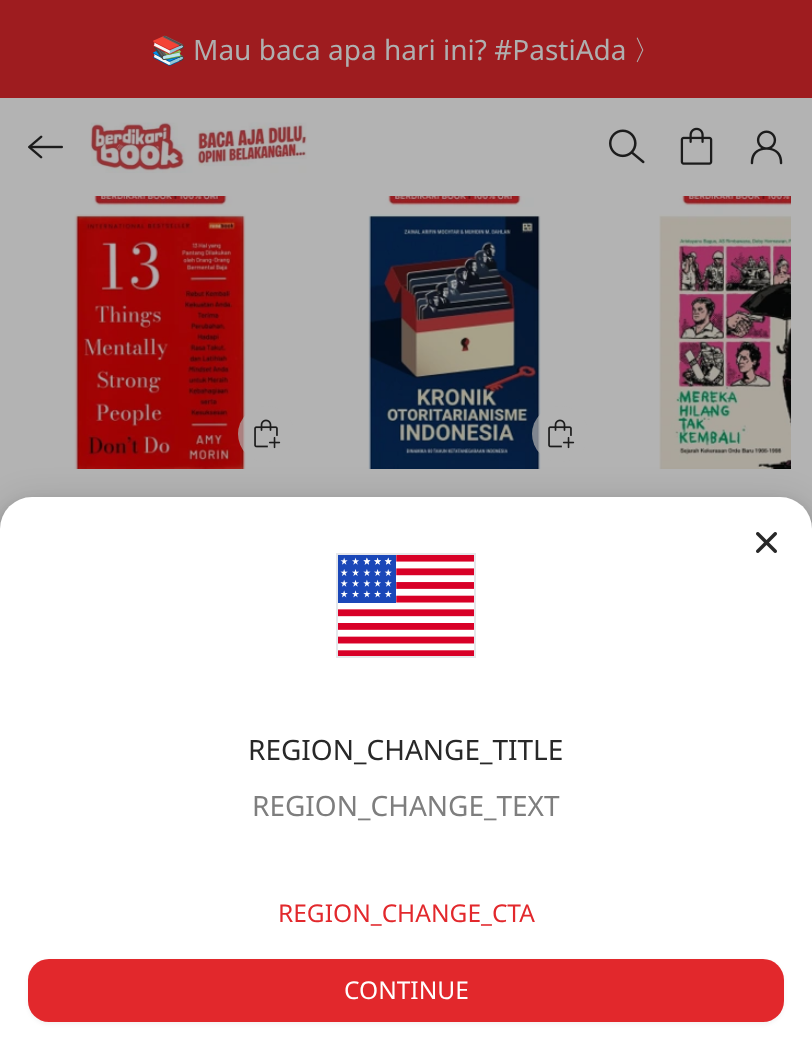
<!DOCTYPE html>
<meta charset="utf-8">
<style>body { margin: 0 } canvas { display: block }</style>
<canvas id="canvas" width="812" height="1050"></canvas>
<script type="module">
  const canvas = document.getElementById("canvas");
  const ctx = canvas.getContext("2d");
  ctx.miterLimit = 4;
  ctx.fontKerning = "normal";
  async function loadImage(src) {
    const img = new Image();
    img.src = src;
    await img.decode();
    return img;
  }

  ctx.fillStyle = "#b3b3b3";
  ctx.fillRect(0, 0, 812, 1050);
  ctx.fillStyle = "#9e1c1f";
  ctx.fillRect(0, 0, 812, 98);
  ctx.font = "28px Noto Color Emoji";
  ctx.fillStyle = "#afafaf";
  ctx.fillText("📚", 151, 60);
  ctx.font = "28px Noto Sans";
  ctx.fillText("Mau baca apa hari ini? #PastiAda", 193, 60);
  ctx.font = "500 28px WenQuanYi Zen Hei";
  ctx.fillText("〉", 633, 60);
  ctx.drawImage(await loadImage("img1.png"), 28, 135, 35, 24);
  ctx.drawImage(await loadImage("img2.png"), 90, 122, 217, 51);
  ctx.drawImage(await loadImage("img3.png"), 609, 129, 36, 35);
  ctx.drawImage(await loadImage("img4.png"), 680, 127, 33, 38);
  ctx.drawImage(await loadImage("img5.png"), 750, 130, 33, 35);
  ctx.drawImage(await loadImage("img6.png"), 74, 196, 172, 273);
  ctx.fillStyle = "rgba(179, 179, 179, 0.7)";
  ctx.beginPath();
  ctx.arc(266, 434, 28, 0, Math.PI * 2);
  ctx.fill();
  ctx.drawImage(await loadImage("img7.png"), 254, 419, 27, 30);
  ctx.drawImage(await loadImage("img8.png"), 368, 196, 173, 273);
  ctx.beginPath();
  ctx.arc(560, 434, 28, 0, Math.PI * 2);
  ctx.fill();
  ctx.drawImage(await loadImage("img7.png"), 548, 419, 27, 30);
  ctx.drawImage(await loadImage("img9.png"), 659, 196, 132, 273);
  ctx.fillStyle = "rgba(0, 0, 0, 0.12)";
  ctx.filter = "blur(16px)";
  ctx.beginPath();
  ctx.roundRect(0, 499, 812, 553, 32);
  ctx.fill();
  ctx.filter = "none";
  ctx.fillStyle = "rgba(0, 0, 0, 0.14)";
  ctx.filter = "blur(9px)";
  ctx.beginPath();
  ctx.roundRect(0, 508, 812, 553, 32);
  ctx.fill();
  ctx.filter = "none";
  ctx.fillStyle = "rgba(0, 0, 0, 0.2)";
  ctx.filter = "blur(4.5px)";
  ctx.beginPath();
  ctx.roundRect(2, 504, 808, 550, 30);
  ctx.fill();
  ctx.filter = "none";
  ctx.fillStyle = "#ffffff";
  ctx.beginPath();
  ctx.roundRect(0, 497, 812, 553, [32, 32, 0, 0]);
  ctx.fill();
  ctx.drawImage(await loadImage("img10.png"), 756, 532, 21, 21);
  ctx.strokeStyle = "#e5e7eb";
  ctx.lineWidth = 2;
  ctx.strokeRect(337, 554, 138, 103);
  ctx.drawImage(await loadImage("img11.png"), 338, 555, 136, 101);
  ctx.font = "28px Noto Sans";
  ctx.fillStyle = "#282828";
  ctx.fillText("REGION_CHANGE_TITLE", 248, 760);
  ctx.fillStyle = "#7e7e7e";
  ctx.fillText("REGION_CHANGE_TEXT", 252, 816);
  ctx.font = "24.5px Noto Sans";
  ctx.fillStyle = "#e2282c";
  ctx.fillText("REGION_CHANGE_CTA", 278, 922);
  ctx.fillStyle = "rgba(0, 0, 0, 0.05)";
  ctx.filter = "blur(2px)";
  ctx.beginPath();
  ctx.roundRect(28, 961, 756, 63, 21);
  ctx.fill();
  ctx.filter = "none";
  ctx.fillStyle = "#e2282c";
  ctx.beginPath();
  ctx.roundRect(28, 959, 756, 63, 21);
  ctx.fill();
  ctx.fillStyle = "#ffffff";
  ctx.fillText("CONTINUE", 344, 999);
</script>
